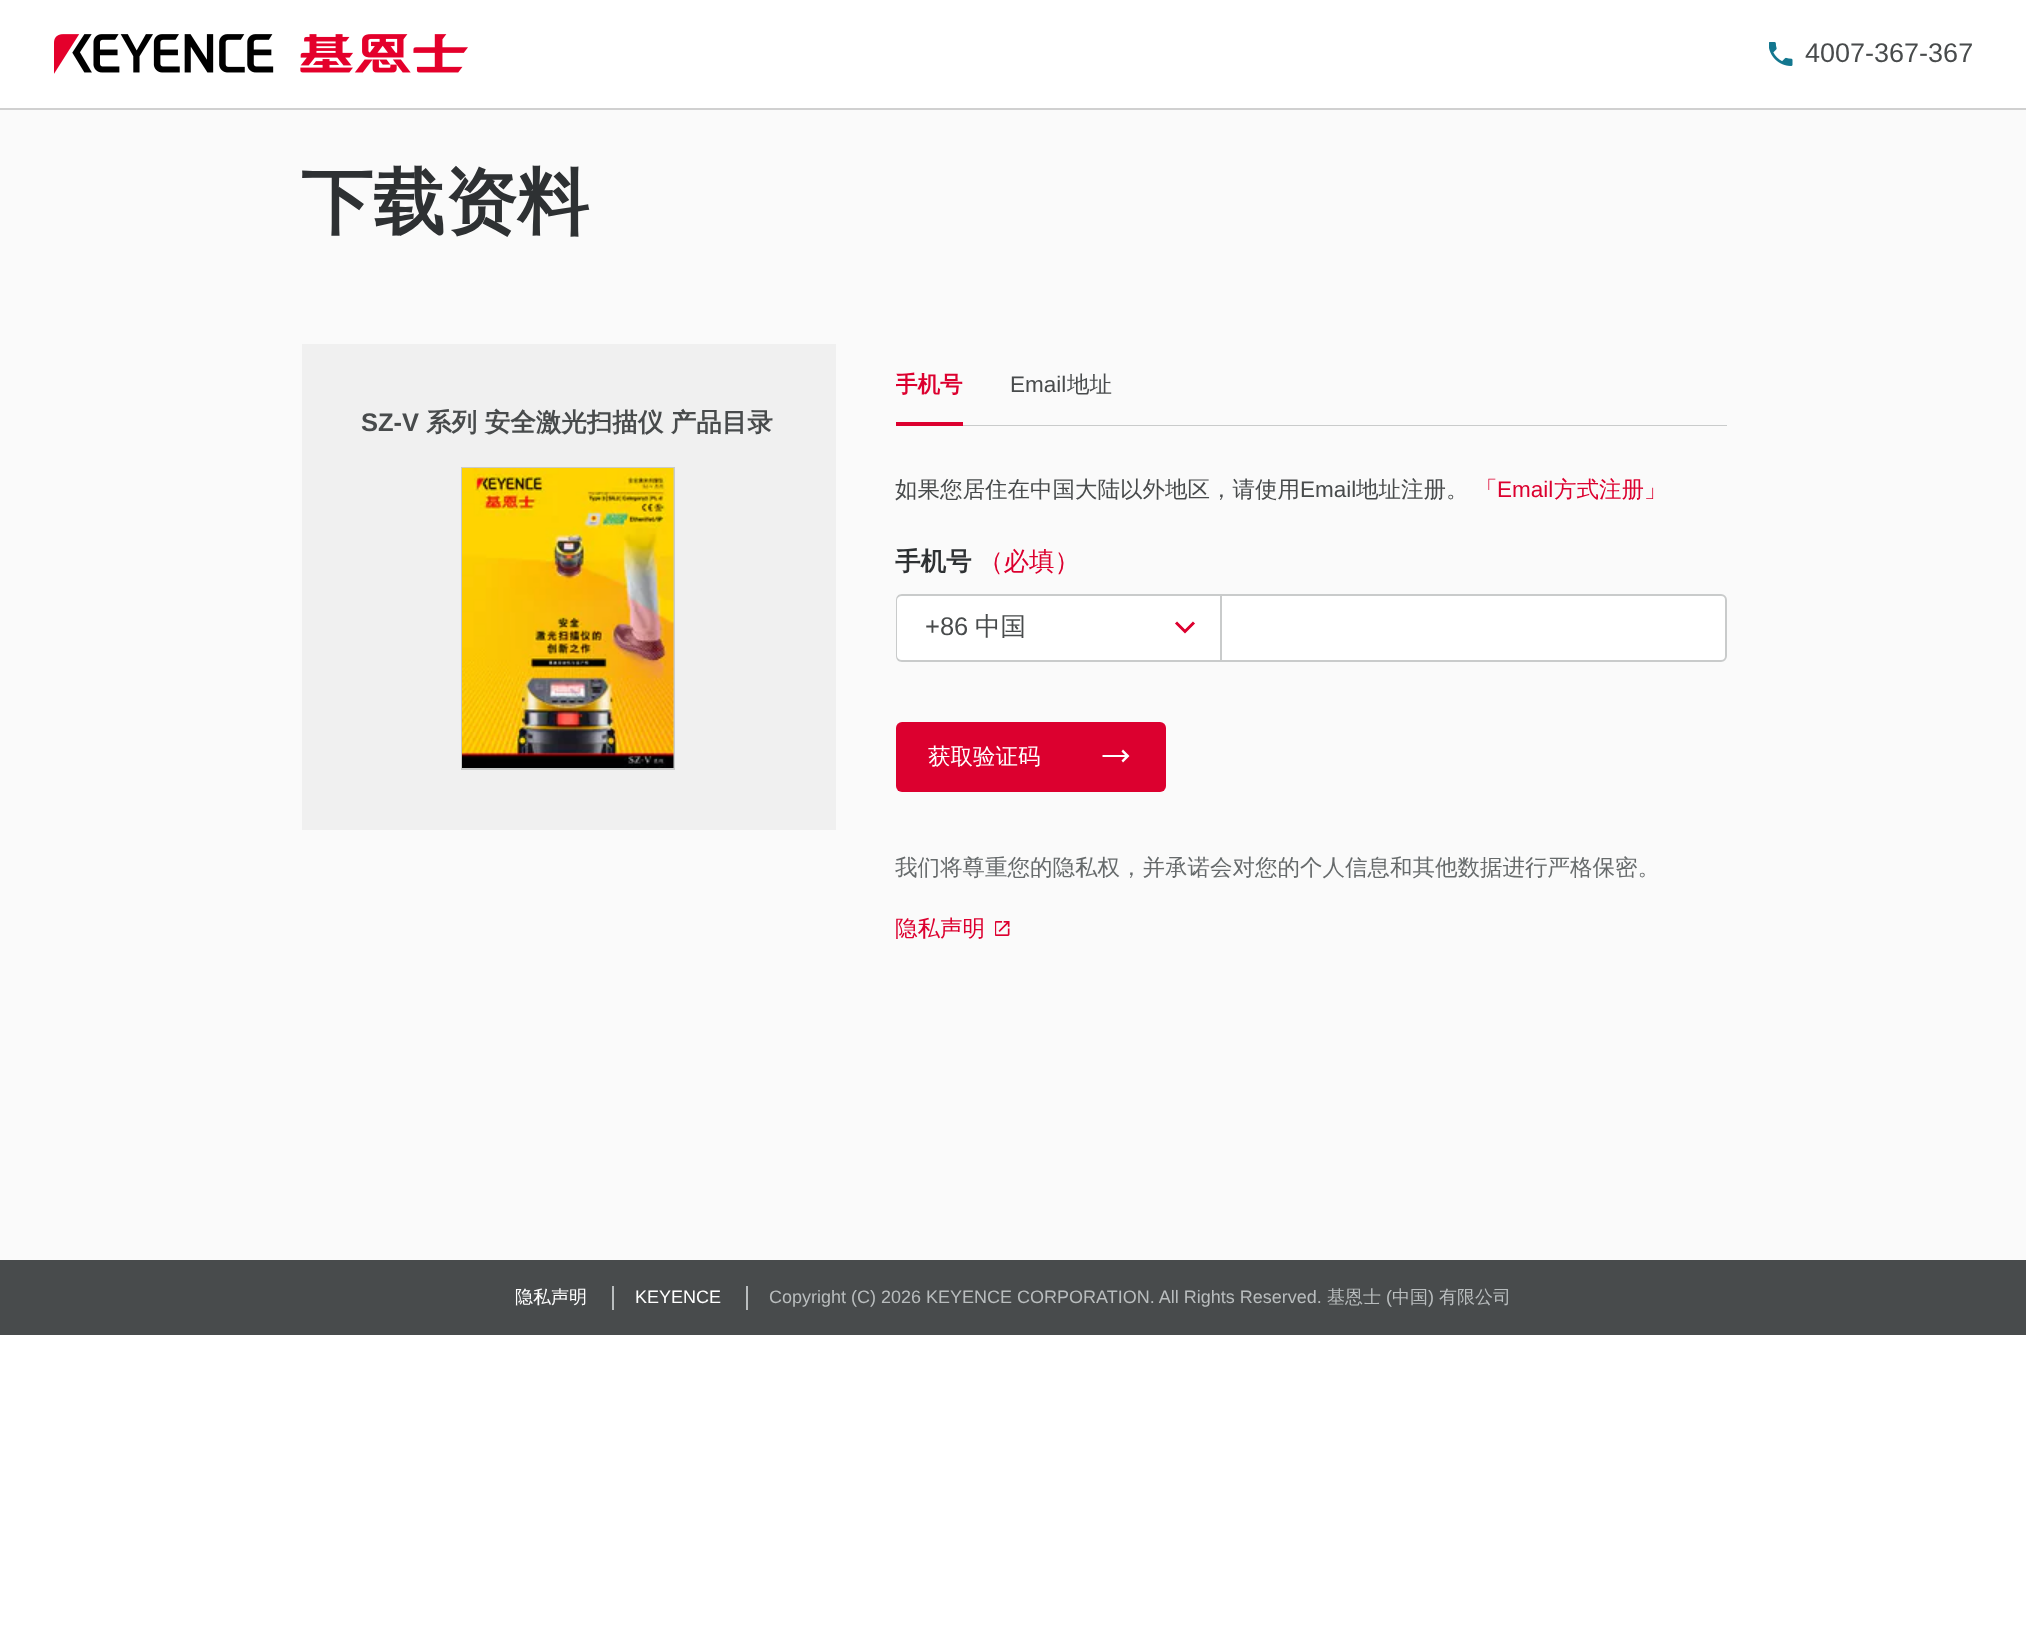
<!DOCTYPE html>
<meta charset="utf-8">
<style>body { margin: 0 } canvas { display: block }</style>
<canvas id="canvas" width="2026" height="1647"></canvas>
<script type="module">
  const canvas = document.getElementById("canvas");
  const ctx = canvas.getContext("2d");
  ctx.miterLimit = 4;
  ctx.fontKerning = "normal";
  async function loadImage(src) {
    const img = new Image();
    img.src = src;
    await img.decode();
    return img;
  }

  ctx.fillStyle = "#ffffff";
  ctx.fillRect(0, 0, 2026, 1647);
  ctx.fillStyle = "#d0d0d0";
  ctx.fillRect(0, 108, 2026, 2);
  ctx.drawImage(await loadImage("img1.png"), 54, 34, 414, 40);
  ctx.drawImage(await loadImage("img2.png"), 1769, 42, 24, 24);
  ctx.font = "27px Liberation Sans";
  ctx.fillStyle = "#484b4c";
  ctx.fillText("4007-367-367", 1805, 62);
  ctx.fillStyle = "#fafafa";
  ctx.fillRect(0, 110, 2026, 1150);
  ctx.font = "bold 72px WenQuanYi Zen Hei";
  ctx.fillStyle = "#2e3133";
  ctx.fillText("下载资料", 301, 227);
  ctx.fillStyle = "#f0f0f0";
  ctx.fillRect(302, 344, 534, 486);
  ctx.font = "bold 25.5px Liberation Sans";
  ctx.fillStyle = "#484b4c";
  ctx.fillText("SZ-V", 361, 431);
  ctx.font = "bold 25.5px WenQuanYi Zen Hei";
  ctx.fillText("系列 安全激光扫描仪 产品目录", 426, 431);
  ctx.strokeStyle = "#c9cbcb";
  ctx.lineWidth = 2;
  ctx.strokeRect(462, 468, 212, 301);
  ctx.drawImage(await loadImage("img3.png"), 462, 468, 212, 300);
  ctx.fillStyle = "#dc002f";
  ctx.fillRect(896, 422, 67, 4);
  ctx.save();
  ctx.beginPath();
  ctx.rect(896, 344, 831, 82);
  ctx.clip();
  ctx.font = "bold 22.5px WenQuanYi Zen Hei";
  ctx.fillText("手机号", 895, 392);
  ctx.restore();
  ctx.fillStyle = "#c9cbcb";
  ctx.fillRect(963, 425, 764, 1);
  ctx.font = "22.5px Liberation Sans";
  ctx.fillStyle = "#484b4c";
  ctx.fillText("Email", 1010, 392);
  ctx.font = "500 22.5px WenQuanYi Zen Hei";
  ctx.fillText("地址", 1067, 392);
  ctx.fillText("如果您居住在中国大陆以外地区，请使用", 895, 497);
  ctx.font = "22.5px Liberation Sans";
  ctx.fillText("Email", 1300, 497);
  ctx.font = "500 22.5px WenQuanYi Zen Hei";
  ctx.fillText("地址注册。", 1356, 497);
  ctx.fillStyle = "#dc002f";
  ctx.fillText("「", 1475, 497);
  ctx.font = "22.5px Liberation Sans";
  ctx.fillText("Email", 1497, 497);
  ctx.font = "500 22.5px WenQuanYi Zen Hei";
  ctx.fillText("方式注册」", 1554, 497);
  ctx.font = "bold 25.5px WenQuanYi Zen Hei";
  ctx.fillStyle = "#2e3133";
  ctx.fillText("手机号", 895, 570);
  ctx.font = "500 25.5px WenQuanYi Zen Hei";
  ctx.fillStyle = "#dc002f";
  ctx.fillText("（必填）", 978, 570);
  ctx.fillStyle = "#ffffff";
  ctx.beginPath();
  ctx.roundRect(896, 594, 324, 68, [6, 0, 0, 6]);
  ctx.fill();
  ctx.beginPath();
  ctx.moveTo(1176, 622.5);
  ctx.lineTo(1185, 631.5);
  ctx.lineTo(1194, 622.5);
  ctx.strokeStyle = "#dc002f";
  ctx.lineWidth = 3;
  ctx.stroke();
  ctx.fillStyle = "#c9cbcb";
  ctx.beginPath();
  ctx.moveTo(902, 594);
  ctx.lineTo(1220, 594);
  ctx.lineTo(1220, 662);
  ctx.lineTo(902, 662);
  ctx.bezierCurveTo(898, 662, 896, 659, 896, 656);
  ctx.lineTo(896, 600);
  ctx.bezierCurveTo(896, 597, 898, 594, 902, 594);
  ctx.closePath();
  ctx.moveTo(902, 596);
  ctx.lineTo(1220, 596);
  ctx.lineTo(1220, 660);
  ctx.lineTo(902, 660);
  ctx.bezierCurveTo(899, 660, 897, 658, 897, 656);
  ctx.lineTo(897, 600);
  ctx.bezierCurveTo(897, 598, 899, 596, 902, 596);
  ctx.closePath();
  ctx.fill("evenodd");
  ctx.font = "25.5px Liberation Sans";
  ctx.fillStyle = "#484b4c";
  ctx.fillText("+86", 925, 635);
  ctx.font = "500 25.5px WenQuanYi Zen Hei";
  ctx.fillText("中国", 975, 635);
  ctx.fillStyle = "#ffffff";
  ctx.beginPath();
  ctx.roundRect(1221, 595, 505, 66, [0, 5, 5, 0]);
  ctx.fill();
  ctx.strokeStyle = "#c9cbcb";
  ctx.lineWidth = 2;
  ctx.stroke();
  ctx.fillStyle = "#dc002f";
  ctx.beginPath();
  ctx.roundRect(896, 722, 270, 70, 6);
  ctx.fill();
  ctx.font = "500 22.5px WenQuanYi Zen Hei";
  ctx.fillStyle = "#ffffff";
  ctx.fillText("获取验证码", 928, 764);
  ctx.beginPath();
  ctx.moveTo(1128, 754.5);
  ctx.lineTo(1123, 749.5);
  ctx.lineTo(1121.5, 751.5);
  ctx.lineTo(1125, 755);
  ctx.lineTo(1102.5, 755);
  ctx.lineTo(1102.5, 757);
  ctx.lineTo(1125, 757);
  ctx.lineTo(1121.5, 760.5);
  ctx.lineTo(1123, 762.5);
  ctx.lineTo(1129.5, 756);
  ctx.closePath();
  ctx.fill();
  ctx.fillStyle = "#666a6b";
  ctx.fillText("我们将尊重您的隐私权，并承诺会对您的个人信息和其他数据进行严格保密。", 895, 875);
  ctx.fillStyle = "#dc002f";
  ctx.fillText("隐私声明", 895, 936);
  ctx.drawImage(await loadImage("img4.png"), 995, 921, 15, 15);
  ctx.fillStyle = "#484b4c";
  ctx.fillRect(0, 1260, 2026, 75);
  ctx.font = "500 18px WenQuanYi Zen Hei";
  ctx.fillStyle = "#ffffff";
  ctx.fillText("隐私声明", 515, 1303);
  ctx.fillStyle = "#b9bdbe";
  ctx.fillRect(612, 1286, 2, 24);
  ctx.font = "18px Liberation Sans";
  ctx.fillStyle = "#ffffff";
  ctx.fillText("KEYENCE", 635, 1303);
  ctx.fillStyle = "#b9bdbe";
  ctx.fillRect(746, 1286, 2, 24);
  ctx.fillText("Copyright (C) 2026 KEYENCE CORPORATION. All Rights Reserved.", 769, 1303);
  ctx.font = "500 18px WenQuanYi Zen Hei";
  ctx.fillText("基恩士", 1327, 1303);
  ctx.font = "18px Liberation Sans";
  ctx.fillText("(", 1386, 1303);
  ctx.font = "500 18px WenQuanYi Zen Hei";
  ctx.fillText("中国", 1392, 1303);
  ctx.font = "18px Liberation Sans";
  ctx.fillText(")", 1428, 1303);
  ctx.font = "500 18px WenQuanYi Zen Hei";
  ctx.fillText("有限公司", 1439, 1303);
</script>
